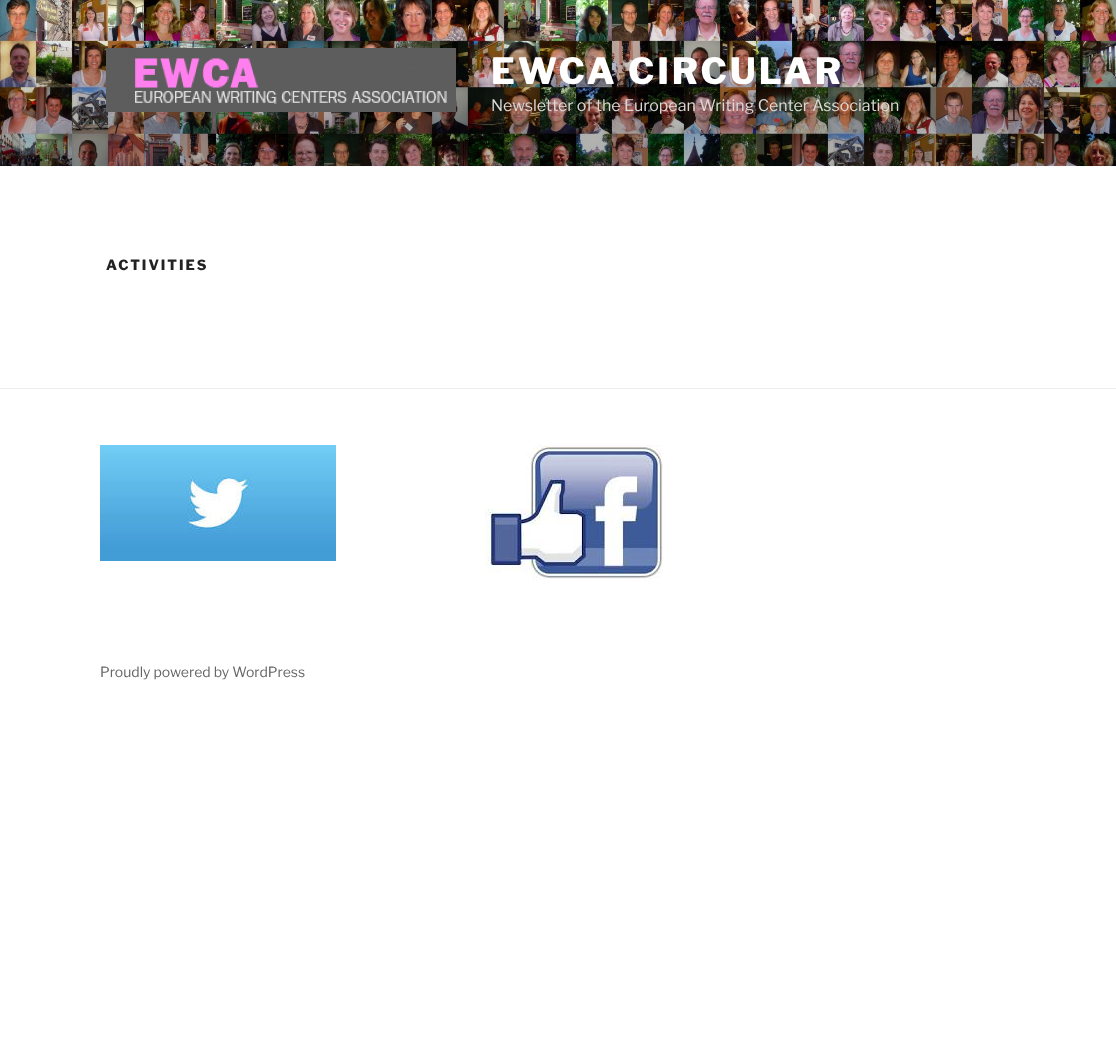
<!DOCTYPE html>
<meta charset="utf-8">
<style>body { margin: 0 } canvas { display: block }</style>
<canvas id="canvas" width="1116" height="1064"></canvas>
<script type="module">
  const canvas = document.getElementById("canvas");
  const ctx = canvas.getContext("2d");
  ctx.miterLimit = 4;
  ctx.fontKerning = "normal";
  async function loadImage(src) {
    const img = new Image();
    img.src = src;
    await img.decode();
    return img;
  }

  ctx.fillStyle = "#ffffff";
  ctx.fillRect(0, 0, 1116, 1064);
  ctx.fillStyle = "#fafafa";
  ctx.fillRect(0, 166, 1116, 1);
  ctx.drawImage(await loadImage("img1.png"), 0, 0, 1116, 166);
  ctx.drawImage(await loadImage("img2.png"), 106, 48, 350, 64);
  ctx.letterSpacing = "2.9px";
  ctx.font = "100 36px Libre Franklin";
  ctx.fillStyle = "#ffffff";
  ctx.fillText("EWCA CIRCULAR", 491, 84);
  ctx.letterSpacing = "0px";
  ctx.font = "100 16px 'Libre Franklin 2'";
  ctx.fillStyle = "#dbd8d5";
  ctx.fillText("Newsletter of the European Writing Center Association", 491, 111);
  ctx.letterSpacing = "2px";
  ctx.font = "100 14px Libre Franklin";
  ctx.fillStyle = "#222222";
  ctx.fillText("ACTIVITIES", 106, 270);
  ctx.fillStyle = "#eeeeee";
  ctx.fillRect(0, 388, 1116, 1);
  ctx.drawImage(await loadImage("img3.png"), 100, 445, 236, 116);
  ctx.drawImage(await loadImage("img4.png"), 485, 445, 178, 136);
  ctx.letterSpacing = "0px";
  ctx.font = "100 14px 'Libre Franklin 2'";
  ctx.fillStyle = "#666666";
  ctx.fillText("Proudly powered by WordPress", 100, 677);
</script>
